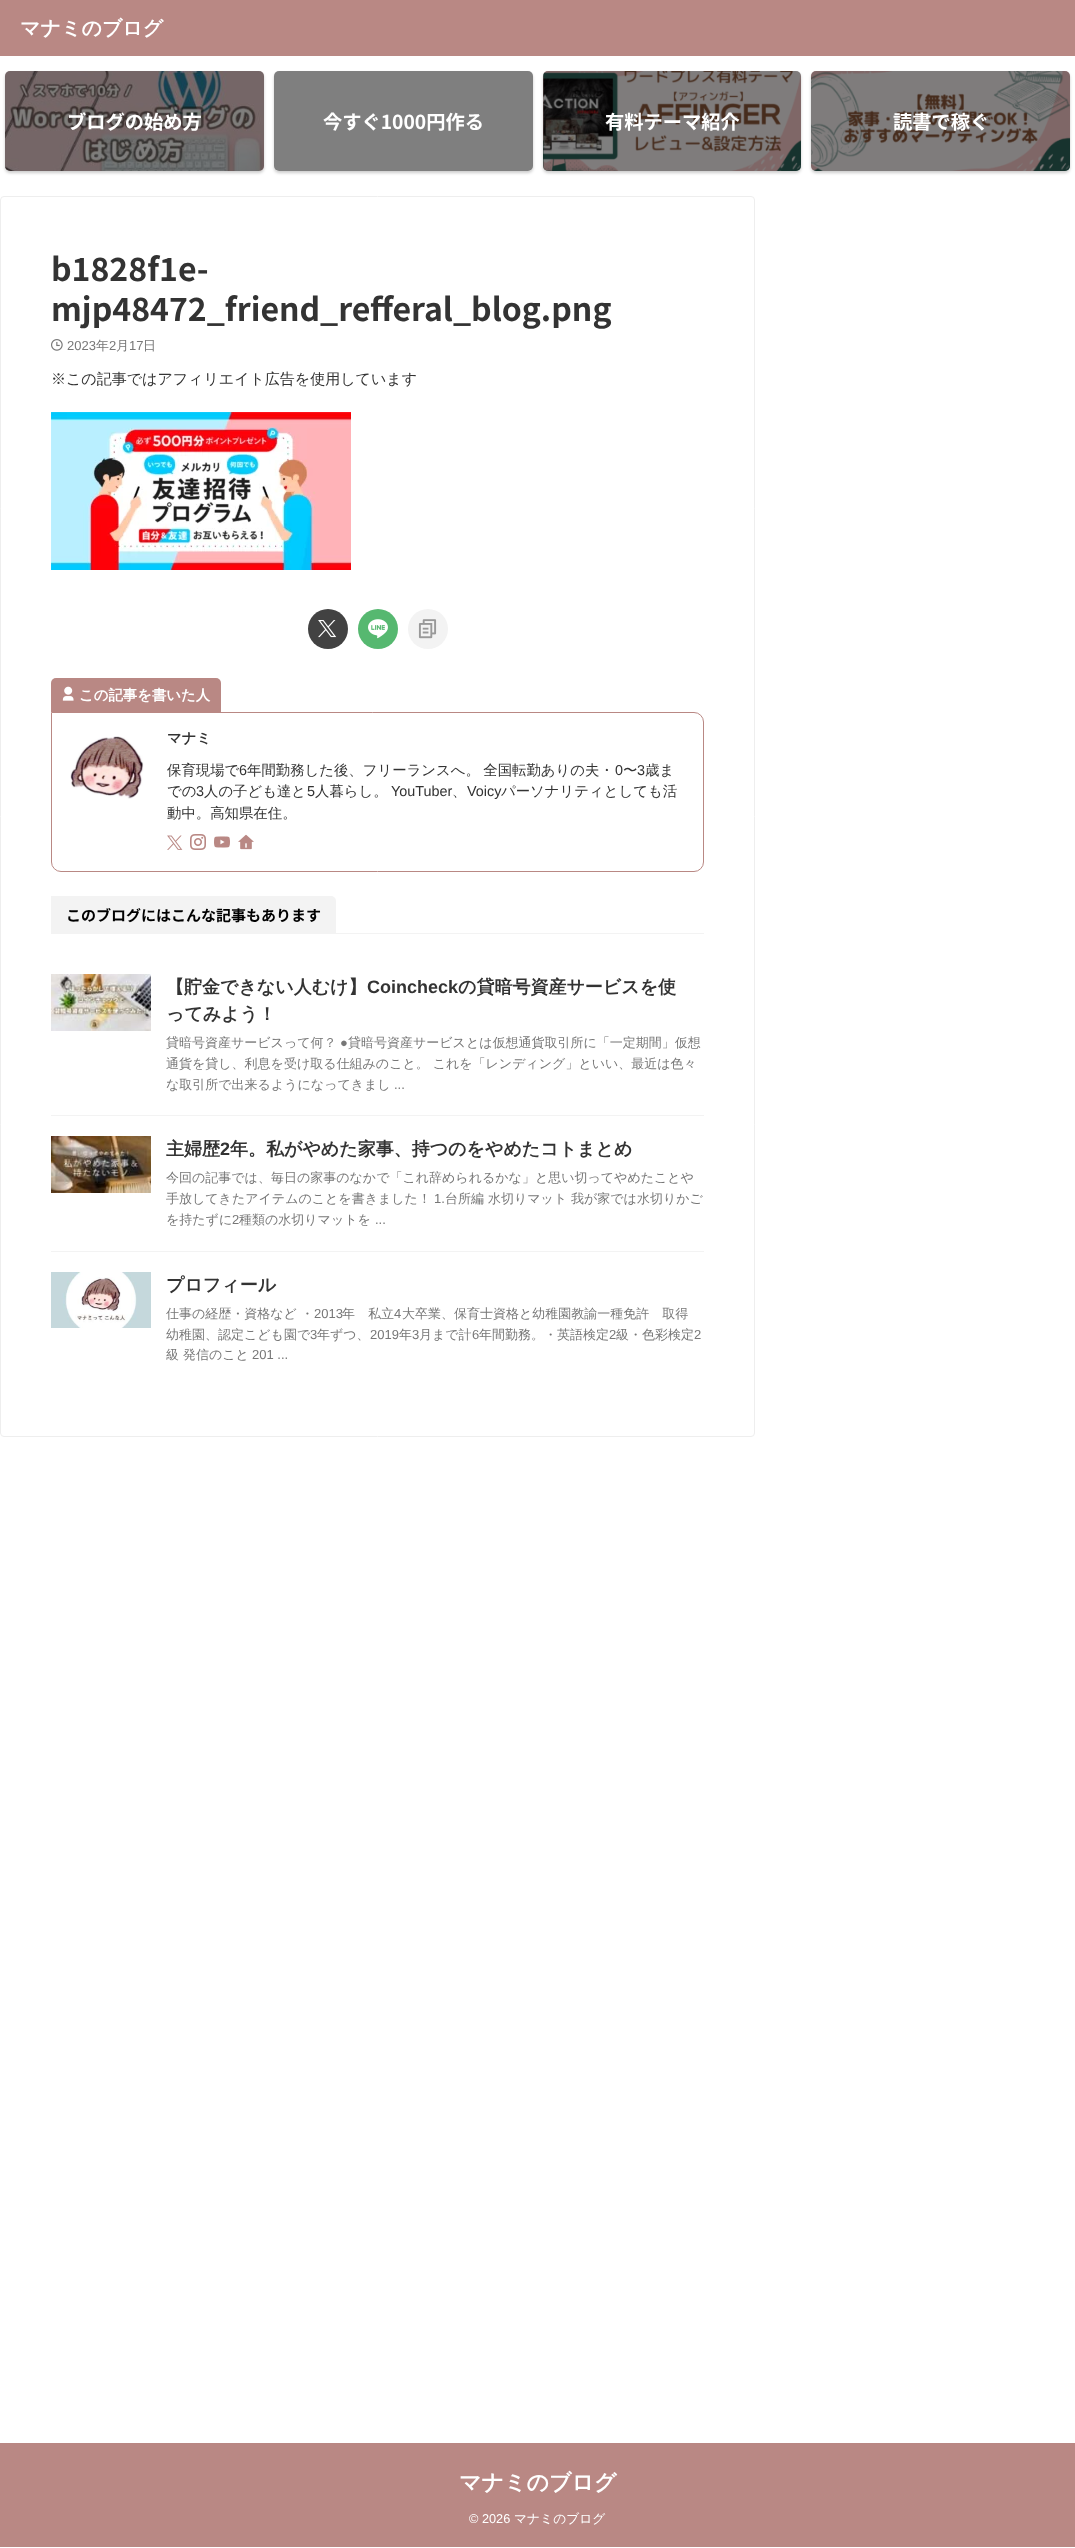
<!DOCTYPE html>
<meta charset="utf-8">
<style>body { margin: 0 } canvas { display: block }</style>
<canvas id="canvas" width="1075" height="2548"></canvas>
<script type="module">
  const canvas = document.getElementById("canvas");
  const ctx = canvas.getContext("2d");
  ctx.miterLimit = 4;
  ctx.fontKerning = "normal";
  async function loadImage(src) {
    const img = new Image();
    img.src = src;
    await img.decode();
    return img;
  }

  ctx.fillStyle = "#ffffff";
  ctx.fillRect(0, 0, 1075, 2548);
  ctx.fillStyle = "#b98884";
  ctx.fillRect(0, 0, 1075, 56);
  ctx.font = "bold 20px WenQuanYi Zen Hei";
  ctx.fillStyle = "#ffffff";
  ctx.fillText("マナミのブログ", 20, 35);
  ctx.fillStyle = "rgba(0, 0, 0, 0.2)";
  ctx.filter = "blur(1.5px)";
  ctx.beginPath();
  ctx.roundRect(5, 73, 259, 100, 5);
  ctx.fill();
  ctx.filter = "none";
  ctx.drawImage(await loadImage("img1.png"), 5, 71, 259, 100);
  ctx.fillStyle = "rgba(0, 0, 0, 0.5)";
  ctx.beginPath();
  ctx.roundRect(5, 71, 259, 100, 5);
  ctx.fill();
  ctx.font = "bold 19.25px Noto Sans JP";
  ctx.fillStyle = "#ffffff";
  ctx.fillText("ブログの始め方", 67, 129);
  ctx.save();
  ctx.beginPath();
  ctx.moveTo(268, 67);
  ctx.lineTo(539, 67);
  ctx.lineTo(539, 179);
  ctx.lineTo(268, 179);
  ctx.closePath();
  ctx.moveTo(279, 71);
  ctx.lineTo(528, 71);
  ctx.bezierCurveTo(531, 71, 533, 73, 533, 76);
  ctx.lineTo(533, 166);
  ctx.bezierCurveTo(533, 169, 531, 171, 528, 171);
  ctx.lineTo(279, 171);
  ctx.bezierCurveTo(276, 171, 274, 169, 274, 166);
  ctx.lineTo(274, 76);
  ctx.bezierCurveTo(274, 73, 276, 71, 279, 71);
  ctx.closePath();
  ctx.clip("evenodd");
  ctx.fillStyle = "rgba(0, 0, 0, 0.2)";
  ctx.filter = "blur(1.5px)";
  ctx.beginPath();
  ctx.roundRect(274, 73, 259, 100, 5);
  ctx.fill();
  ctx.filter = "none";
  ctx.restore();
  ctx.fillStyle = "rgba(0, 0, 0, 0.5)";
  ctx.beginPath();
  ctx.roundRect(274, 71, 259, 100, 5);
  ctx.fill();
  ctx.fillStyle = "#ffffff";
  ctx.fillText("今すぐ1000円作る", 323, 129);
  ctx.fillStyle = "rgba(0, 0, 0, 0.2)";
  ctx.filter = "blur(1.5px)";
  ctx.beginPath();
  ctx.roundRect(543, 73, 258, 100, 5);
  ctx.fill();
  ctx.filter = "none";
  ctx.drawImage(await loadImage("img2.png"), 543, 71, 258, 100);
  ctx.fillStyle = "rgba(0, 0, 0, 0.5)";
  ctx.beginPath();
  ctx.roundRect(543, 71, 258, 100, 5);
  ctx.fill();
  ctx.fillStyle = "#ffffff";
  ctx.fillText("有料テーマ紹介", 605, 129);
  ctx.fillStyle = "rgba(0, 0, 0, 0.2)";
  ctx.filter = "blur(1.5px)";
  ctx.beginPath();
  ctx.roundRect(811, 73, 259, 100, 5);
  ctx.fill();
  ctx.filter = "none";
  ctx.drawImage(await loadImage("img3.png"), 811, 71, 259, 100);
  ctx.fillStyle = "rgba(0, 0, 0, 0.5)";
  ctx.beginPath();
  ctx.roundRect(811, 71, 259, 100, 5);
  ctx.fill();
  ctx.fillStyle = "#ffffff";
  ctx.fillText("読書で稼ぐ", 893, 129);
  ctx.beginPath();
  ctx.roundRect(0.5, 196.5, 754, 1240, 3.5);
  ctx.strokeStyle = "#eeeeee";
  ctx.stroke();
  ctx.font = "bold 32px Noto Sans JP";
  ctx.fillStyle = "#333333";
  ctx.fillText("b1828f1e-", 51, 281);
  ctx.fillText("mjp48472_friend_refferal_blog.png", 51, 321);
  ctx.drawImage(await loadImage("img4.png"), 51, 339, 12, 12);
  ctx.font = "13px Liberation Sans";
  ctx.fillStyle = "#777777";
  ctx.fillText("2023", 67, 350);
  ctx.font = "500 13px WenQuanYi Zen Hei";
  ctx.fillText("年", 96, 350);
  ctx.font = "13px Liberation Sans";
  ctx.fillText("2", 109, 350);
  ctx.font = "500 13px WenQuanYi Zen Hei";
  ctx.fillText("月", 116, 350);
  ctx.font = "13px Liberation Sans";
  ctx.fillText("17", 129, 350);
  ctx.font = "500 13px WenQuanYi Zen Hei";
  ctx.fillText("日", 143, 350);
  ctx.font = "500 15px WenQuanYi Zen Hei";
  ctx.fillStyle = "#333333";
  ctx.fillText("※この記事ではアフィリエイト広告を使用しています", 51, 384);
  ctx.drawImage(await loadImage("img5.png"), 51, 412, 300, 158);
  ctx.fillStyle = "#424242";
  ctx.beginPath();
  ctx.arc(328, 629, 20, 0, Math.PI * 2);
  ctx.fill();
  ctx.drawImage(await loadImage("img6.png"), 318, 620, 19, 18);
  ctx.fillStyle = "#56b870";
  ctx.beginPath();
  ctx.arc(378, 629, 20, 0, Math.PI * 2);
  ctx.fill();
  ctx.drawImage(await loadImage("img7.png"), 368, 619, 20, 20);
  ctx.fillStyle = "#f3f3f3";
  ctx.beginPath();
  ctx.arc(428, 629, 20, 0, Math.PI * 2);
  ctx.fill();
  ctx.drawImage(await loadImage("img8.png"), 418, 619, 19, 20);
  ctx.fillStyle = "#b98884";
  ctx.beginPath();
  ctx.roundRect(51, 678, 170, 34, [5, 5, 0, 0]);
  ctx.fill();
  ctx.drawImage(await loadImage("img9.png"), 62, 686, 12, 15);
  ctx.font = "bold 14.4px WenQuanYi Zen Hei";
  ctx.fillStyle = "#ffffff";
  ctx.fillText("この記事を書いた人", 79, 700);
  ctx.beginPath();
  ctx.roundRect(51.5, 712.5, 652, 159, [0, 9.5, 9.5, 9.5]);
  ctx.strokeStyle = "#b98884";
  ctx.stroke();
  ctx.drawImage(await loadImage("img10.png"), 70, 736, 74, 63);
  ctx.fillStyle = "#333333";
  ctx.fillText("マナミ", 167, 743);
  ctx.font = "500 14.4px WenQuanYi Zen Hei";
  ctx.fillText("保育現場で", 167, 775);
  ctx.font = "14.4px Liberation Sans";
  ctx.fillText("6", 239, 775);
  ctx.wordSpacing = "-1px";
  ctx.font = "500 14.4px WenQuanYi Zen Hei";
  ctx.fillText("年間勤務した後、フリーランスへ。 全国転勤ありの夫・", 247, 775);
  ctx.wordSpacing = "0px";
  ctx.font = "14.4px Liberation Sans";
  ctx.fillText("0", 615, 775);
  ctx.font = "500 14.4px WenQuanYi Zen Hei";
  ctx.fillText("〜", 623, 775);
  ctx.font = "14.4px Liberation Sans";
  ctx.fillText("3", 637, 775);
  ctx.font = "500 14.4px WenQuanYi Zen Hei";
  ctx.fillText("歳ま", 645, 775);
  ctx.fillText("での", 167, 796);
  ctx.font = "14.4px Liberation Sans";
  ctx.fillText("3", 196, 796);
  ctx.font = "500 14.4px WenQuanYi Zen Hei";
  ctx.fillText("人の子ども達と", 204, 796);
  ctx.font = "14.4px Liberation Sans";
  ctx.fillText("5", 307, 796);
  ctx.font = "500 14.4px WenQuanYi Zen Hei";
  ctx.fillText("人暮らし。", 315, 796);
  ctx.font = "14.4px Liberation Sans";
  ctx.fillText("YouTuber", 391, 796);
  ctx.font = "500 14.4px WenQuanYi Zen Hei";
  ctx.fillText("、", 452, 796);
  ctx.font = "14.4px Liberation Sans";
  ctx.fillText("Voicy", 467, 796);
  ctx.font = "500 14.4px WenQuanYi Zen Hei";
  ctx.fillText("パーソナリティとしても活", 501, 796);
  ctx.fillText("動中。高知県在住。", 167, 818);
  ctx.drawImage(await loadImage("img11.png"), 167, 835, 16, 15);
  ctx.drawImage(await loadImage("img12.png"), 190, 834, 16, 16);
  ctx.drawImage(await loadImage("img13.png"), 214, 836, 16, 12);
  ctx.drawImage(await loadImage("img14.png"), 238, 834, 16, 16);
  ctx.fillStyle = "#f3f3f3";
  ctx.fillRect(51, 933, 653, 1);
  ctx.beginPath();
  ctx.roundRect(51, 896, 285, 37, [0, 5, 0, 0]);
  ctx.fill();
  ctx.font = "bold 15px Noto Sans JP";
  ctx.fillStyle = "#000000";
  ctx.fillText("このブログにはこんな記事もあります", 66, 921);
  ctx.fillStyle = "#f3f3f3";
  ctx.fillRect(51, 1115, 653, 1);
  ctx.drawImage(await loadImage("img15.png"), 51, 974, 100, 57);
  ctx.font = "bold 18px WenQuanYi Zen Hei";
  ctx.fillStyle = "#333333";
  ctx.fillText("【貯金できない人むけ】", 166, 993);
  ctx.font = "bold 18px Liberation Sans";
  ctx.fillText("Coincheck", 367, 993);
  ctx.font = "bold 18px WenQuanYi Zen Hei";
  ctx.fillText("の貸暗号資産サービスを使", 458, 993);
  ctx.fillText("ってみよう！", 166, 1020);
  ctx.font = "500 13px WenQuanYi Zen Hei";
  ctx.fillStyle = "#777777";
  ctx.fillText("貸暗号資産サービスって何？", 166, 1047);
  ctx.font = "13px Liberation Sans";
  ctx.fillText("●", 340, 1047);
  ctx.font = "500 13px WenQuanYi Zen Hei";
  ctx.fillText("貸暗号資産サービスとは仮想通貨取引所に「一定期間」仮想", 348, 1047);
  ctx.fillText("通貨を貸し、利息を受け取る仕組みのこと。 これを「レンディング」といい、最近は色々", 166, 1068);
  ctx.fillText("な取引所で出来るようになってきまし", 166, 1089);
  ctx.font = "13px Liberation Sans";
  ctx.fillText("...", 394, 1089);
  ctx.fillStyle = "#f3f3f3";
  ctx.fillRect(51, 1251, 653, 1);
  ctx.drawImage(await loadImage("img16.png"), 51, 1136, 100, 57);
  ctx.font = "bold 18px WenQuanYi Zen Hei";
  ctx.fillStyle = "#333333";
  ctx.fillText("主婦歴", 166, 1155);
  ctx.font = "bold 18px Liberation Sans";
  ctx.fillText("2", 220, 1155);
  ctx.font = "bold 18px WenQuanYi Zen Hei";
  ctx.fillText("年。私がやめた家事、持つのをやめたコトまとめ", 230, 1155);
  ctx.font = "500 13px WenQuanYi Zen Hei";
  ctx.fillStyle = "#777777";
  ctx.fillText("今回の記事では、毎日の家事のなかで「これ辞められるかな」と思い切ってやめたことや", 166, 1182);
  ctx.fillText("手放してきたアイテムのことを書きました！", 166, 1203);
  ctx.font = "13px Liberation Sans";
  ctx.fillText("1.", 434, 1203);
  ctx.font = "500 13px WenQuanYi Zen Hei";
  ctx.fillText("台所編 水切りマット 我が家では水切りかご", 445, 1203);
  ctx.fillText("を持たずに", 166, 1224);
  ctx.font = "13px Liberation Sans";
  ctx.fillText("2", 232, 1224);
  ctx.font = "500 13px WenQuanYi Zen Hei";
  ctx.fillText("種類の水切りマットを", 239, 1224);
  ctx.font = "13px Liberation Sans";
  ctx.fillText("...", 375, 1224);
  ctx.drawImage(await loadImage("img17.png"), 51, 1272, 100, 56);
  ctx.font = "bold 18px WenQuanYi Zen Hei";
  ctx.fillStyle = "#333333";
  ctx.fillText("プロフィール", 166, 1291);
  ctx.font = "500 13px WenQuanYi Zen Hei";
  ctx.fillStyle = "#777777";
  ctx.fillText("仕事の経歴・資格など ・", 166, 1318);
  ctx.font = "13px Liberation Sans";
  ctx.fillText("2013", 314, 1318);
  ctx.font = "500 13px WenQuanYi Zen Hei";
  ctx.fillText("年　私立", 342, 1318);
  ctx.font = "13px Liberation Sans";
  ctx.fillText("4", 394, 1318);
  ctx.font = "500 13px WenQuanYi Zen Hei";
  ctx.fillText("大卒業、保育士資格と幼稚園教諭一種免許　取得", 402, 1318);
  ctx.fillText("幼稚園、認定こども園で", 166, 1339);
  ctx.font = "13px Liberation Sans";
  ctx.fillText("3", 310, 1339);
  ctx.font = "500 13px WenQuanYi Zen Hei";
  ctx.fillText("年ずつ、", 317, 1339);
  ctx.font = "13px Liberation Sans";
  ctx.fillText("2019", 370, 1339);
  ctx.font = "500 13px WenQuanYi Zen Hei";
  ctx.fillText("年", 399, 1339);
  ctx.font = "13px Liberation Sans";
  ctx.fillText("3", 412, 1339);
  ctx.font = "500 13px WenQuanYi Zen Hei";
  ctx.fillText("月まで計", 419, 1339);
  ctx.font = "13px Liberation Sans";
  ctx.fillText("6", 472, 1339);
  ctx.font = "500 13px WenQuanYi Zen Hei";
  ctx.fillText("年間勤務。・英語検定", 479, 1339);
  ctx.font = "13px Liberation Sans";
  ctx.fillText("2", 609, 1339);
  ctx.font = "500 13px WenQuanYi Zen Hei";
  ctx.fillText("級・色彩検定", 616, 1339);
  ctx.font = "13px Liberation Sans";
  ctx.fillText("2", 694, 1339);
  ctx.font = "500 13px WenQuanYi Zen Hei";
  ctx.fillText("級 発信のこと", 166, 1359);
  ctx.font = "13px Liberation Sans";
  ctx.fillText("201 ...", 252, 1359);
  ctx.fillStyle = "#b98884";
  ctx.fillRect(0, 2443, 1075, 104);
  ctx.font = "bold 22px WenQuanYi Zen Hei";
  ctx.fillStyle = "#ffffff";
  ctx.fillText("マナミのブログ", 459, 2490);
  ctx.font = "12.75px Liberation Sans";
  ctx.fillText("© 2026", 469, 2523);
  ctx.font = "500 12.75px WenQuanYi Zen Hei";
  ctx.fillText("マナミのブログ", 514, 2523);
</script>
